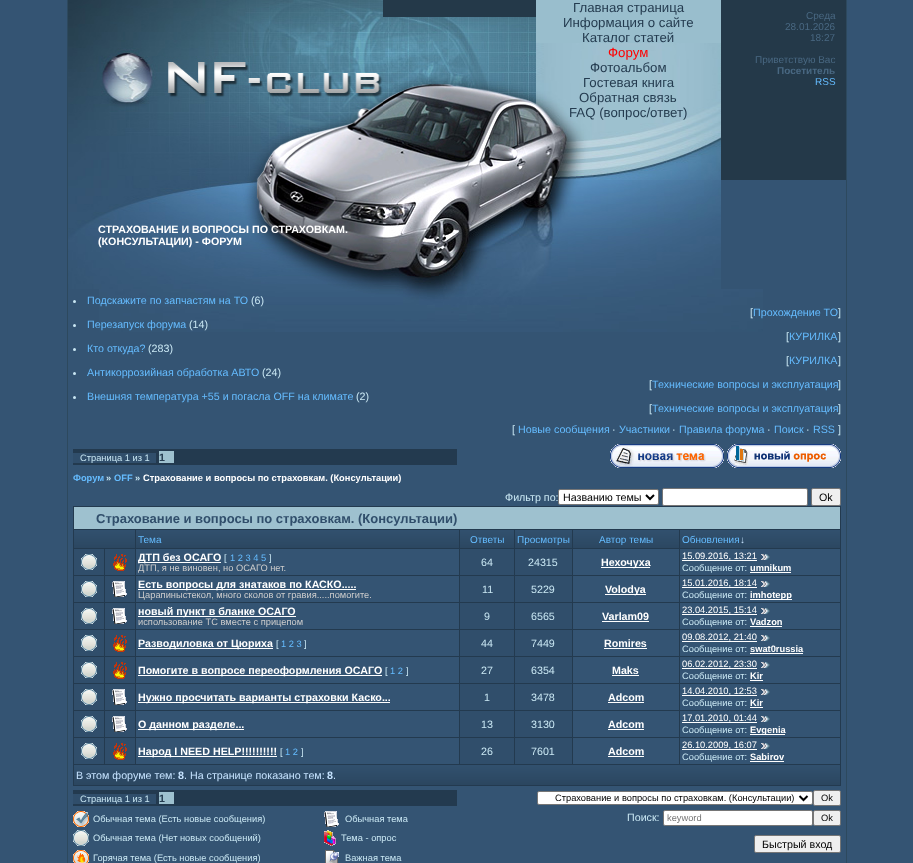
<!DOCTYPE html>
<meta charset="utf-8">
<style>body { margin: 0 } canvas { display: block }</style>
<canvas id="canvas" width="913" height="863"></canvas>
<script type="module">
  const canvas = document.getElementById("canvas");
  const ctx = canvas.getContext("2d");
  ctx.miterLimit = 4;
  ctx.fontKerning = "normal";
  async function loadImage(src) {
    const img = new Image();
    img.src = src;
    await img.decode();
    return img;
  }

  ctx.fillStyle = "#345473";
  ctx.fillRect(0, 0, 913, 863);
  ctx.fillStyle = "#2d495e";
  ctx.fillRect(846, 0, 1, 863);
  ctx.fillRect(67, 0, 1, 863);
  ctx.drawImage(await loadImage("img1.png"), 68, 0, 315, 180);
  ctx.fillStyle = "#243949";
  ctx.fillRect(383, 0, 153, 17);
  ctx.drawImage(await loadImage("img2.png"), 383, 17, 153, 163);
  ctx.fillStyle = "#99becd";
  ctx.fillRect(536, 0, 185, 43);
  ctx.drawImage(await loadImage("img3.png"), 536, 43, 185, 137);
  ctx.font = "13.25px Liberation Sans";
  ctx.fillStyle = "#243b4f";
  ctx.fillText("Главная страница", 573, 12);
  ctx.fillText("Информация о сайте", 563, 27);
  ctx.fillText("Каталог статей", 582, 42);
  ctx.fillStyle = "#ff0000";
  ctx.fillText("Форум", 608, 57);
  ctx.fillStyle = "#243b4f";
  ctx.fillText("Фотоальбом", 590, 72);
  ctx.fillText("Гостевая книга", 583, 87);
  ctx.fillText("Обратная связь", 579, 102);
  ctx.fillText("FAQ (вопрос/ответ)", 569, 117);
  ctx.fillStyle = "#243949";
  ctx.fillRect(721, 0, 125, 180);
  ctx.font = "10px Liberation Sans";
  ctx.fillStyle = "#496882";
  ctx.fillText("Среда", 806, 19);
  ctx.fillText("28.01.2026", 785, 30);
  ctx.fillText("18:27", 810, 41);
  ctx.fillText("Приветствую Вас", 755, 63);
  ctx.font = "bold 10px Liberation Sans";
  ctx.fillText("Посетитель", 777, 74);
  ctx.font = "10px Liberation Sans";
  ctx.fillStyle = "#65bcff";
  ctx.fillText("RSS", 815, 85);
  ctx.drawImage(await loadImage("img4.png"), 68, 180, 315, 109);
  ctx.font = "bold 10.7px Liberation Sans";
  ctx.fillStyle = "#ffffff";
  ctx.fillText("СТРАХОВАНИЕ И ВОПРОСЫ ПО СТРАХОВКАМ.", 98, 233);
  ctx.fillText("(КОНСУЛЬТАЦИИ) - ФОРУМ", 98, 245);
  ctx.drawImage(await loadImage("img5.png"), 383, 180, 153, 109);
  ctx.drawImage(await loadImage("img6.png"), 536, 180, 185, 109);
  ctx.drawImage(await loadImage("img7.png"), 99, 289, 664, 43);
  ctx.fillStyle = "#c9e7f3";
  ctx.beginPath();
  ctx.arc(74.5, 301.5, 1.5, 0, Math.PI * 2);
  ctx.fill();
  ctx.font = "10.7px Liberation Sans";
  ctx.fillStyle = "#65bcff";
  ctx.fillText("Подскажите по запчастям на ТО", 87, 304);
  ctx.fillStyle = "#c9e7f3";
  ctx.fillText("(6)", 251, 304);
  ctx.fillText("[", 750, 316);
  ctx.fillStyle = "#65bcff";
  ctx.fillText("Прохождение ТО", 753, 316);
  ctx.fillStyle = "#c9e7f3";
  ctx.fillText("]", 838, 316);
  ctx.beginPath();
  ctx.arc(74.5, 325.5, 1.5, 0, Math.PI * 2);
  ctx.fill();
  ctx.fillStyle = "#65bcff";
  ctx.fillText("Перезапуск форума", 87, 328);
  ctx.fillStyle = "#c9e7f3";
  ctx.fillText("(14)", 189, 328);
  ctx.fillText("[", 786, 340);
  ctx.fillStyle = "#65bcff";
  ctx.fillText("КУРИЛКА", 789, 340);
  ctx.fillStyle = "#c9e7f3";
  ctx.fillText("]", 838, 340);
  ctx.beginPath();
  ctx.arc(74.5, 349.5, 1.5, 0, Math.PI * 2);
  ctx.fill();
  ctx.fillStyle = "#65bcff";
  ctx.fillText("Кто откуда?", 87, 352);
  ctx.fillStyle = "#c9e7f3";
  ctx.fillText("(283)", 148, 352);
  ctx.fillText("[", 786, 364);
  ctx.fillStyle = "#65bcff";
  ctx.fillText("КУРИЛКА", 789, 364);
  ctx.fillStyle = "#c9e7f3";
  ctx.fillText("]", 838, 364);
  ctx.beginPath();
  ctx.arc(74.5, 373.5, 1.5, 0, Math.PI * 2);
  ctx.fill();
  ctx.fillStyle = "#65bcff";
  ctx.fillText("Антикоррозийная обработка АВТО", 87, 376);
  ctx.fillStyle = "#c9e7f3";
  ctx.fillText("(24)", 262, 376);
  ctx.fillText("[", 649, 388);
  ctx.fillStyle = "#65bcff";
  ctx.fillText("Технические вопросы и эксплуатация", 652, 388);
  ctx.fillStyle = "#c9e7f3";
  ctx.fillText("]", 838, 388);
  ctx.beginPath();
  ctx.arc(74.5, 397.5, 1.5, 0, Math.PI * 2);
  ctx.fill();
  ctx.fillStyle = "#65bcff";
  ctx.fillText("Внешняя температура +55 и погасла OFF на климате", 87, 400);
  ctx.fillStyle = "#c9e7f3";
  ctx.fillText("(2)", 356, 400);
  ctx.fillText("[", 649, 412);
  ctx.fillStyle = "#65bcff";
  ctx.fillText("Технические вопросы и эксплуатация", 652, 412);
  ctx.fillStyle = "#c9e7f3";
  ctx.fillText("]", 838, 412);
  ctx.fillText("[", 512, 433);
  ctx.fillStyle = "#65bcff";
  ctx.fillText("Новые сообщения", 518, 433);
  ctx.fillStyle = "#c9e7f3";
  ctx.fillText("·", 612, 433);
  ctx.fillStyle = "#65bcff";
  ctx.fillText("Участники", 619, 433);
  ctx.fillStyle = "#c9e7f3";
  ctx.fillText("·", 672, 433);
  ctx.fillStyle = "#65bcff";
  ctx.fillText("Правила форума", 679, 433);
  ctx.fillStyle = "#c9e7f3";
  ctx.fillText("·", 767, 433);
  ctx.fillStyle = "#65bcff";
  ctx.fillText("Поиск", 774, 433);
  ctx.fillStyle = "#c9e7f3";
  ctx.fillText("·", 806, 433);
  ctx.fillStyle = "#65bcff";
  ctx.fillText("RSS", 813, 433);
  ctx.fillStyle = "#c9e7f3";
  ctx.fillText("]", 838, 433);
  ctx.fillStyle = "#233a4f";
  ctx.fillRect(73, 449, 384, 16);
  ctx.fillStyle = "#304e6b";
  ctx.fillRect(73, 453, 83, 10);
  ctx.font = "9.3px Liberation Sans";
  ctx.fillStyle = "#c9e7f3";
  ctx.fillText("Страница 1 из 1", 80, 461);
  ctx.fillStyle = "#9ec1cf";
  ctx.fillRect(159, 451, 15, 12);
  ctx.font = "bold 10.7px Liberation Sans";
  ctx.fillStyle = "#243b4f";
  ctx.fillText("1", 159, 461);
  ctx.drawImage(await loadImage("img8.png"), 610, 444, 114, 24);
  ctx.drawImage(await loadImage("img9.png"), 727, 444, 114, 24);
  ctx.font = "bold 9.3px Liberation Sans";
  ctx.fillStyle = "#65bcff";
  ctx.fillText("Форум", 73, 481);
  ctx.fillStyle = "#c9e7f3";
  ctx.fillText("»", 106, 481);
  ctx.fillStyle = "#65bcff";
  ctx.fillText("OFF", 114, 481);
  ctx.fillStyle = "#c9e7f3";
  ctx.fillText("»", 135, 481);
  ctx.fillStyle = "#ffffff";
  ctx.fillText("Страхование и вопросы по страховкам. (Консультации)", 143, 481);
  ctx.font = "10.7px Liberation Sans";
  ctx.fillStyle = "#c9e7f3";
  ctx.fillText("Фильтр по:", 505, 501);
  ctx.fillStyle = "#ffffff";
  ctx.beginPath();
  ctx.roundRect(558.5, 489.5, 100, 15, 1.5);
  ctx.fill();
  ctx.strokeStyle = "#767676";
  ctx.stroke();
  ctx.beginPath();
  ctx.moveTo(646, 495);
  ctx.lineTo(650, 499);
  ctx.lineTo(654, 495);
  ctx.strokeStyle = "#000000";
  ctx.lineWidth = 2;
  ctx.stroke();
  ctx.fillStyle = "#000000";
  ctx.fillText("Названию темы", 563, 501);
  ctx.fillStyle = "#ffffff";
  ctx.beginPath();
  ctx.roundRect(662.5, 488.5, 145, 17, 1.5);
  ctx.fill();
  ctx.strokeStyle = "#767676";
  ctx.lineWidth = 1;
  ctx.stroke();
  ctx.fillStyle = "#efefef";
  ctx.beginPath();
  ctx.roundRect(811.5, 488.5, 29, 17, 1.5);
  ctx.fill();
  ctx.stroke();
  ctx.fillStyle = "#000000";
  ctx.fillText("Ok", 819, 501);
  ctx.fillStyle = "#233a4f";
  ctx.fillRect(73, 506, 768, 280);
  ctx.fillStyle = "#9ec1cf";
  ctx.fillRect(74, 507, 766, 22);
  ctx.font = "bold 13px Liberation Sans";
  ctx.fillStyle = "#304e6b";
  ctx.fillText("Страхование и вопросы по страховкам. (Консультации)", 96, 523);
  ctx.drawImage(await loadImage("img10.png"), 74, 530, 61, 18);
  ctx.drawImage(await loadImage("img11.png"), 136, 530, 323, 18);
  ctx.font = "10px Liberation Sans";
  ctx.fillStyle = "#65bcff";
  ctx.fillText("Тема", 138, 543);
  ctx.drawImage(await loadImage("img12.png"), 460, 530, 54, 18);
  ctx.fillText("Ответы", 470, 543);
  ctx.drawImage(await loadImage("img13.png"), 515, 530, 57, 18);
  ctx.fillText("Просмотры", 517, 543);
  ctx.drawImage(await loadImage("img14.png"), 573, 530, 106, 18);
  ctx.fillText("Автор темы", 599, 543);
  ctx.drawImage(await loadImage("img15.png"), 680, 530, 160, 18);
  ctx.fillText("Обновления", 682, 543);
  ctx.fillStyle = "#c6e3ff";
  ctx.fillText("↓", 740, 543);
  ctx.fillStyle = "#304e6b";
  ctx.fillRect(74, 549, 30, 26);
  ctx.drawImage(await loadImage("img16.png"), 81, 554, 16, 16);
  ctx.fillRect(105, 549, 30, 26);
  ctx.drawImage(await loadImage("img17.png"), 113, 554, 14, 17);
  ctx.fillStyle = "#345473";
  ctx.fillRect(136, 549, 323, 26);
  ctx.fillStyle = "#ffffff";
  ctx.fillRect(138, 562, 83, 1);
  ctx.font = "bold 10.7px Liberation Sans";
  ctx.fillText("ДТП без ОСАГО", 138, 561);
  ctx.font = "9.3px Liberation Sans";
  ctx.fillStyle = "#c9e7f3";
  ctx.fillText("[", 224, 561);
  ctx.fillStyle = "#65bcff";
  ctx.fillText("1 2 3 4 5", 230, 561);
  ctx.fillStyle = "#c9e7f3";
  ctx.fillText("]", 269, 561);
  ctx.fillStyle = "#cccccc";
  ctx.fillText("ДТП, я не виновен, но ОСАГО нет.", 138, 571);
  ctx.fillStyle = "#304e6b";
  ctx.fillRect(460, 549, 54, 26);
  ctx.font = "10.7px Liberation Sans";
  ctx.fillStyle = "#c9e7f3";
  ctx.fillText("64", 481, 566);
  ctx.fillStyle = "#304e6b";
  ctx.fillRect(515, 549, 57, 26);
  ctx.fillStyle = "#c9e7f3";
  ctx.fillText("24315", 528, 566);
  ctx.fillStyle = "#345473";
  ctx.fillRect(573, 549, 106, 26);
  ctx.fillStyle = "#ffffff";
  ctx.fillRect(601, 567, 49, 1);
  ctx.font = "bold 10.7px Liberation Sans";
  ctx.fillText("Нехочуха", 601, 566);
  ctx.fillStyle = "#345473";
  ctx.fillRect(680, 549, 160, 26);
  ctx.fillStyle = "#ffffff";
  ctx.fillRect(682, 560, 75, 1);
  ctx.font = "9.3px Liberation Sans";
  ctx.fillText("15.09.2016, 13:21", 682, 559);
  ctx.drawImage(await loadImage("img18.png"), 761, 554, 9, 6);
  ctx.fillStyle = "#c9e7f3";
  ctx.fillText("Сообщение от:", 682, 571);
  ctx.font = "bold 9.3px Liberation Sans";
  ctx.fillStyle = "#ffffff";
  ctx.fillText("umnikum", 750, 571);
  ctx.fillRect(750, 572, 41, 1);
  ctx.fillStyle = "#304e6b";
  ctx.fillRect(74, 576, 30, 26);
  ctx.drawImage(await loadImage("img16.png"), 81, 581, 16, 16);
  ctx.fillRect(105, 576, 30, 26);
  ctx.drawImage(await loadImage("img19.png"), 112, 581, 15, 16);
  ctx.fillStyle = "#345473";
  ctx.fillRect(136, 576, 323, 26);
  ctx.fillStyle = "#ffffff";
  ctx.fillRect(138, 589, 218, 1);
  ctx.font = "bold 10.7px Liberation Sans";
  ctx.fillText("Есть вопросы для знатаков по КАСКО.....", 138, 588);
  ctx.font = "9.3px Liberation Sans";
  ctx.fillStyle = "#cccccc";
  ctx.fillText("Царапиныстекол, много сколов от гравия.....помогите.", 138, 598);
  ctx.fillStyle = "#304e6b";
  ctx.fillRect(460, 576, 54, 26);
  ctx.font = "10.7px Liberation Sans";
  ctx.fillStyle = "#c9e7f3";
  ctx.fillText("11", 482, 593);
  ctx.fillStyle = "#304e6b";
  ctx.fillRect(515, 576, 57, 26);
  ctx.fillStyle = "#c9e7f3";
  ctx.fillText("5229", 531, 593);
  ctx.fillStyle = "#345473";
  ctx.fillRect(573, 576, 106, 26);
  ctx.fillStyle = "#ffffff";
  ctx.fillRect(605, 594, 41, 1);
  ctx.font = "bold 10.7px Liberation Sans";
  ctx.fillText("Volodya", 605, 593);
  ctx.fillStyle = "#345473";
  ctx.fillRect(680, 576, 160, 26);
  ctx.fillStyle = "#ffffff";
  ctx.fillRect(682, 587, 75, 1);
  ctx.font = "9.3px Liberation Sans";
  ctx.fillText("15.01.2016, 18:14", 682, 586);
  ctx.drawImage(await loadImage("img18.png"), 761, 581, 9, 6);
  ctx.fillStyle = "#c9e7f3";
  ctx.fillText("Сообщение от:", 682, 598);
  ctx.fillStyle = "#ffffff";
  ctx.fillRect(750, 599, 42, 1);
  ctx.font = "bold 9.3px Liberation Sans";
  ctx.fillText("imhotepp", 750, 598);
  ctx.fillStyle = "#304e6b";
  ctx.fillRect(74, 603, 30, 26);
  ctx.drawImage(await loadImage("img16.png"), 81, 608, 16, 16);
  ctx.fillRect(105, 603, 30, 26);
  ctx.drawImage(await loadImage("img19.png"), 112, 608, 15, 16);
  ctx.fillStyle = "#345473";
  ctx.fillRect(136, 603, 323, 26);
  ctx.fillStyle = "#ffffff";
  ctx.fillRect(138, 616, 158, 1);
  ctx.font = "bold 10.7px Liberation Sans";
  ctx.fillText("новый пункт в бланке ОСАГО", 138, 615);
  ctx.font = "9.3px Liberation Sans";
  ctx.fillStyle = "#cccccc";
  ctx.fillText("использование ТС вместе с прицепом", 138, 625);
  ctx.fillStyle = "#304e6b";
  ctx.fillRect(460, 603, 54, 26);
  ctx.font = "10.7px Liberation Sans";
  ctx.fillStyle = "#c9e7f3";
  ctx.fillText("9", 484, 620);
  ctx.fillStyle = "#304e6b";
  ctx.fillRect(515, 603, 57, 26);
  ctx.fillStyle = "#c9e7f3";
  ctx.fillText("6565", 531, 620);
  ctx.fillStyle = "#345473";
  ctx.fillRect(573, 603, 106, 26);
  ctx.font = "bold 10.7px Liberation Sans";
  ctx.fillStyle = "#ffffff";
  ctx.fillText("Varlam09", 602, 620);
  ctx.fillRect(602, 621, 47, 1);
  ctx.fillStyle = "#345473";
  ctx.fillRect(680, 603, 160, 26);
  ctx.fillStyle = "#ffffff";
  ctx.fillRect(682, 614, 75, 1);
  ctx.font = "9.3px Liberation Sans";
  ctx.fillText("23.04.2015, 15:14", 682, 613);
  ctx.drawImage(await loadImage("img18.png"), 761, 608, 9, 6);
  ctx.fillStyle = "#c9e7f3";
  ctx.fillText("Сообщение от:", 682, 625);
  ctx.font = "bold 9.3px Liberation Sans";
  ctx.fillStyle = "#ffffff";
  ctx.fillText("Vadzon", 750, 625);
  ctx.fillRect(750, 626, 32, 1);
  ctx.fillStyle = "#304e6b";
  ctx.fillRect(74, 630, 30, 26);
  ctx.drawImage(await loadImage("img16.png"), 81, 635, 16, 16);
  ctx.fillRect(105, 630, 30, 26);
  ctx.drawImage(await loadImage("img17.png"), 113, 635, 14, 17);
  ctx.fillStyle = "#345473";
  ctx.fillRect(136, 630, 323, 26);
  ctx.fillStyle = "#ffffff";
  ctx.fillRect(138, 648, 135, 1);
  ctx.font = "bold 10.7px Liberation Sans";
  ctx.fillText("Разводиловка от Цюриха", 138, 647);
  ctx.font = "9.3px Liberation Sans";
  ctx.fillStyle = "#c9e7f3";
  ctx.fillText("[", 276, 647);
  ctx.fillStyle = "#65bcff";
  ctx.fillText("1 2 3", 281, 647);
  ctx.fillStyle = "#c9e7f3";
  ctx.fillText("]", 304, 647);
  ctx.fillStyle = "#304e6b";
  ctx.fillRect(460, 630, 54, 26);
  ctx.font = "10.7px Liberation Sans";
  ctx.fillStyle = "#c9e7f3";
  ctx.fillText("44", 481, 647);
  ctx.fillStyle = "#304e6b";
  ctx.fillRect(515, 630, 57, 26);
  ctx.fillStyle = "#c9e7f3";
  ctx.fillText("7449", 531, 647);
  ctx.fillStyle = "#345473";
  ctx.fillRect(573, 630, 106, 26);
  ctx.font = "bold 10.7px Liberation Sans";
  ctx.fillStyle = "#ffffff";
  ctx.fillText("Romires", 604, 647);
  ctx.fillRect(604, 648, 43, 1);
  ctx.fillStyle = "#345473";
  ctx.fillRect(680, 630, 160, 26);
  ctx.fillStyle = "#ffffff";
  ctx.fillRect(682, 641, 75, 1);
  ctx.font = "9.3px Liberation Sans";
  ctx.fillText("09.08.2012, 21:40", 682, 640);
  ctx.drawImage(await loadImage("img18.png"), 761, 635, 9, 6);
  ctx.fillStyle = "#c9e7f3";
  ctx.fillText("Сообщение от:", 682, 652);
  ctx.font = "bold 9.3px Liberation Sans";
  ctx.fillStyle = "#ffffff";
  ctx.fillText("swat0russia", 750, 652);
  ctx.fillRect(750, 653, 53, 1);
  ctx.fillStyle = "#304e6b";
  ctx.fillRect(74, 657, 30, 26);
  ctx.drawImage(await loadImage("img16.png"), 81, 662, 16, 16);
  ctx.fillRect(105, 657, 30, 26);
  ctx.drawImage(await loadImage("img17.png"), 113, 662, 14, 17);
  ctx.fillStyle = "#345473";
  ctx.fillRect(136, 657, 323, 26);
  ctx.fillStyle = "#ffffff";
  ctx.fillRect(138, 675, 244, 1);
  ctx.font = "bold 10.7px Liberation Sans";
  ctx.fillText("Помогите в вопросе переоформления ОСАГО", 138, 674);
  ctx.font = "9.3px Liberation Sans";
  ctx.fillStyle = "#c9e7f3";
  ctx.fillText("[", 385, 674);
  ctx.fillStyle = "#65bcff";
  ctx.fillText("1 2", 390, 674);
  ctx.fillStyle = "#c9e7f3";
  ctx.fillText("]", 406, 674);
  ctx.fillStyle = "#304e6b";
  ctx.fillRect(460, 657, 54, 26);
  ctx.font = "10.7px Liberation Sans";
  ctx.fillStyle = "#c9e7f3";
  ctx.fillText("27", 481, 674);
  ctx.fillStyle = "#304e6b";
  ctx.fillRect(515, 657, 57, 26);
  ctx.fillStyle = "#c9e7f3";
  ctx.fillText("6354", 531, 674);
  ctx.fillStyle = "#345473";
  ctx.fillRect(573, 657, 106, 26);
  ctx.font = "bold 10.7px Liberation Sans";
  ctx.fillStyle = "#ffffff";
  ctx.fillText("Maks", 612, 674);
  ctx.fillRect(612, 675, 27, 1);
  ctx.fillStyle = "#345473";
  ctx.fillRect(680, 657, 160, 26);
  ctx.fillStyle = "#ffffff";
  ctx.fillRect(682, 668, 75, 1);
  ctx.font = "9.3px Liberation Sans";
  ctx.fillText("06.02.2012, 23:30", 682, 667);
  ctx.drawImage(await loadImage("img18.png"), 761, 662, 9, 6);
  ctx.fillStyle = "#c9e7f3";
  ctx.fillText("Сообщение от:", 682, 679);
  ctx.font = "bold 9.3px Liberation Sans";
  ctx.fillStyle = "#ffffff";
  ctx.fillText("Kir", 750, 679);
  ctx.fillRect(750, 680, 13, 1);
  ctx.fillStyle = "#304e6b";
  ctx.fillRect(74, 684, 30, 26);
  ctx.drawImage(await loadImage("img16.png"), 81, 689, 16, 16);
  ctx.fillRect(105, 684, 30, 26);
  ctx.drawImage(await loadImage("img19.png"), 112, 689, 15, 16);
  ctx.fillStyle = "#345473";
  ctx.fillRect(136, 684, 323, 26);
  ctx.fillStyle = "#ffffff";
  ctx.fillRect(138, 702, 252, 1);
  ctx.font = "bold 10.7px Liberation Sans";
  ctx.fillText("Нужно просчитать варианты страховки Каско...", 138, 701);
  ctx.fillStyle = "#304e6b";
  ctx.fillRect(460, 684, 54, 26);
  ctx.font = "10.7px Liberation Sans";
  ctx.fillStyle = "#c9e7f3";
  ctx.fillText("1", 484, 701);
  ctx.fillStyle = "#304e6b";
  ctx.fillRect(515, 684, 57, 26);
  ctx.fillStyle = "#c9e7f3";
  ctx.fillText("3478", 531, 701);
  ctx.fillStyle = "#345473";
  ctx.fillRect(573, 684, 106, 26);
  ctx.font = "bold 10.7px Liberation Sans";
  ctx.fillStyle = "#ffffff";
  ctx.fillText("Adcom", 608, 701);
  ctx.fillRect(608, 702, 36, 1);
  ctx.fillStyle = "#345473";
  ctx.fillRect(680, 684, 160, 26);
  ctx.fillStyle = "#ffffff";
  ctx.fillRect(682, 695, 75, 1);
  ctx.font = "9.3px Liberation Sans";
  ctx.fillText("14.04.2010, 12:53", 682, 694);
  ctx.drawImage(await loadImage("img18.png"), 761, 689, 9, 6);
  ctx.fillStyle = "#c9e7f3";
  ctx.fillText("Сообщение от:", 682, 706);
  ctx.font = "bold 9.3px Liberation Sans";
  ctx.fillStyle = "#ffffff";
  ctx.fillText("Kir", 750, 706);
  ctx.fillRect(750, 707, 13, 1);
  ctx.fillStyle = "#304e6b";
  ctx.fillRect(74, 711, 30, 26);
  ctx.drawImage(await loadImage("img16.png"), 81, 716, 16, 16);
  ctx.fillRect(105, 711, 30, 26);
  ctx.drawImage(await loadImage("img19.png"), 112, 716, 15, 16);
  ctx.fillStyle = "#345473";
  ctx.fillRect(136, 711, 323, 26);
  ctx.fillStyle = "#ffffff";
  ctx.fillRect(138, 729, 106, 1);
  ctx.font = "bold 10.7px Liberation Sans";
  ctx.fillText("О данном разделе...", 138, 728);
  ctx.fillStyle = "#304e6b";
  ctx.fillRect(460, 711, 54, 26);
  ctx.font = "10.7px Liberation Sans";
  ctx.fillStyle = "#c9e7f3";
  ctx.fillText("13", 481, 728);
  ctx.fillStyle = "#304e6b";
  ctx.fillRect(515, 711, 57, 26);
  ctx.fillStyle = "#c9e7f3";
  ctx.fillText("3130", 531, 728);
  ctx.fillStyle = "#345473";
  ctx.fillRect(573, 711, 106, 26);
  ctx.font = "bold 10.7px Liberation Sans";
  ctx.fillStyle = "#ffffff";
  ctx.fillText("Adcom", 608, 728);
  ctx.fillRect(608, 729, 36, 1);
  ctx.fillStyle = "#345473";
  ctx.fillRect(680, 711, 160, 26);
  ctx.fillStyle = "#ffffff";
  ctx.fillRect(682, 722, 75, 1);
  ctx.font = "9.3px Liberation Sans";
  ctx.fillText("17.01.2010, 01:44", 682, 721);
  ctx.drawImage(await loadImage("img18.png"), 761, 716, 9, 6);
  ctx.fillStyle = "#c9e7f3";
  ctx.fillText("Сообщение от:", 682, 733);
  ctx.fillStyle = "#ffffff";
  ctx.fillRect(750, 734, 35, 1);
  ctx.font = "bold 9.3px Liberation Sans";
  ctx.fillText("Evgenia", 750, 733);
  ctx.fillStyle = "#304e6b";
  ctx.fillRect(74, 738, 30, 26);
  ctx.drawImage(await loadImage("img16.png"), 81, 743, 16, 16);
  ctx.fillRect(105, 738, 30, 26);
  ctx.drawImage(await loadImage("img17.png"), 113, 743, 14, 17);
  ctx.fillStyle = "#345473";
  ctx.fillRect(136, 738, 323, 26);
  ctx.fillStyle = "#ffffff";
  ctx.fillRect(138, 756, 139, 1);
  ctx.font = "bold 10.7px Liberation Sans";
  ctx.fillText("Народ I NEED HELP!!!!!!!!!!", 138, 755);
  ctx.font = "9.3px Liberation Sans";
  ctx.fillStyle = "#c9e7f3";
  ctx.fillText("[", 280, 755);
  ctx.fillStyle = "#65bcff";
  ctx.fillText("1 2", 285, 755);
  ctx.fillStyle = "#c9e7f3";
  ctx.fillText("]", 301, 755);
  ctx.fillStyle = "#304e6b";
  ctx.fillRect(460, 738, 54, 26);
  ctx.font = "10.7px Liberation Sans";
  ctx.fillStyle = "#c9e7f3";
  ctx.fillText("26", 481, 755);
  ctx.fillStyle = "#304e6b";
  ctx.fillRect(515, 738, 57, 26);
  ctx.fillStyle = "#c9e7f3";
  ctx.fillText("7601", 531, 755);
  ctx.fillStyle = "#345473";
  ctx.fillRect(573, 738, 106, 26);
  ctx.font = "bold 10.7px Liberation Sans";
  ctx.fillStyle = "#ffffff";
  ctx.fillText("Adcom", 608, 755);
  ctx.fillRect(608, 756, 36, 1);
  ctx.fillStyle = "#345473";
  ctx.fillRect(680, 738, 160, 26);
  ctx.fillStyle = "#ffffff";
  ctx.fillRect(682, 749, 75, 1);
  ctx.font = "9.3px Liberation Sans";
  ctx.fillText("26.10.2009, 16:07", 682, 748);
  ctx.drawImage(await loadImage("img18.png"), 761, 743, 9, 6);
  ctx.fillStyle = "#c9e7f3";
  ctx.fillText("Сообщение от:", 682, 760);
  ctx.font = "bold 9.3px Liberation Sans";
  ctx.fillStyle = "#ffffff";
  ctx.fillText("Sabirov", 750, 760);
  ctx.fillRect(750, 761, 34, 1);
  ctx.drawImage(await loadImage("img20.png"), 74, 765, 766, 20);
  ctx.font = "10.7px Liberation Sans";
  ctx.fillStyle = "#c6e3ff";
  ctx.fillText("В этом форуме тем:", 76, 779);
  ctx.font = "bold 10.7px Liberation Sans";
  ctx.fillText("8", 178, 779);
  ctx.font = "10.7px Liberation Sans";
  ctx.fillText(". На странице показано тем:", 184, 779);
  ctx.font = "bold 10.7px Liberation Sans";
  ctx.fillText("8", 327, 779);
  ctx.font = "10.7px Liberation Sans";
  ctx.fillText(".", 333, 779);
  ctx.fillStyle = "#233a4f";
  ctx.fillRect(73, 790, 384, 16);
  ctx.fillStyle = "#304e6b";
  ctx.fillRect(73, 794, 83, 10);
  ctx.font = "9.3px Liberation Sans";
  ctx.fillStyle = "#c9e7f3";
  ctx.fillText("Страница 1 из 1", 80, 802);
  ctx.fillStyle = "#9ec1cf";
  ctx.fillRect(159, 792, 15, 12);
  ctx.font = "bold 10.7px Liberation Sans";
  ctx.fillStyle = "#243b4f";
  ctx.fillText("1", 159, 802);
  ctx.fillStyle = "#ffffff";
  ctx.beginPath();
  ctx.roundRect(537.5, 791.5, 275, 13, 1.5);
  ctx.fill();
  ctx.stroke();
  ctx.beginPath();
  ctx.moveTo(799.5, 796);
  ctx.lineTo(803.5, 800);
  ctx.lineTo(807.5, 796);
  ctx.strokeStyle = "#000000";
  ctx.lineWidth = 2;
  ctx.stroke();
  ctx.font = "9.3px Liberation Sans";
  ctx.fillStyle = "#000000";
  ctx.fillText("Страхование и вопросы по страховкам. (Консультации)", 555, 801);
  ctx.fillStyle = "#efefef";
  ctx.beginPath();
  ctx.roundRect(813.5, 790.5, 27, 15, 1.5);
  ctx.fill();
  ctx.strokeStyle = "#767676";
  ctx.lineWidth = 1;
  ctx.stroke();
  ctx.fillStyle = "#000000";
  ctx.fillText("Ok", 821, 801);
  ctx.drawImage(await loadImage("img21.png"), 73, 811, 16, 16);
  ctx.fillStyle = "#c9e7f3";
  ctx.fillText("Обычная тема (Есть новые сообщения)", 93, 822);
  ctx.drawImage(await loadImage("img22.png"), 324, 811, 15, 16);
  ctx.fillText("Обычная тема", 345, 822);
  ctx.drawImage(await loadImage("img23.png"), 73, 830, 16, 16);
  ctx.fillText("Обычная тема (Нет новых сообщений)", 93, 841);
  ctx.drawImage(await loadImage("img24.png"), 324, 830, 12, 16);
  ctx.fillText("Тема - опрос", 341, 841);
  ctx.drawImage(await loadImage("img25.png"), 73, 850, 16, 13);
  ctx.fillText("Горячая тема (Есть новые сообщения)", 93, 861);
  ctx.drawImage(await loadImage("img26.png"), 325, 850, 14, 13);
  ctx.fillText("Важная тема", 345, 861);
  ctx.font = "10.7px Liberation Sans";
  ctx.fillText("Поиск:", 627, 821);
  ctx.fillStyle = "#ffffff";
  ctx.beginPath();
  ctx.roundRect(663.5, 810.5, 149, 15, 1.5);
  ctx.fill();
  ctx.stroke();
  ctx.font = "9.3px Liberation Sans";
  ctx.fillStyle = "#757575";
  ctx.fillText("keyword", 667, 821);
  ctx.fillStyle = "#efefef";
  ctx.beginPath();
  ctx.roundRect(813.5, 810.5, 27, 15, 1.5);
  ctx.fill();
  ctx.stroke();
  ctx.fillStyle = "#000000";
  ctx.fillText("Ok", 821, 821);
  ctx.fillStyle = "#efefef";
  ctx.beginPath();
  ctx.roundRect(754.5, 835.5, 86, 17, 1.5);
  ctx.fill();
  ctx.stroke();
  ctx.font = "10.7px Liberation Sans";
  ctx.fillStyle = "#000000";
  ctx.fillText("Быстрый вход", 762, 848);
</script>
